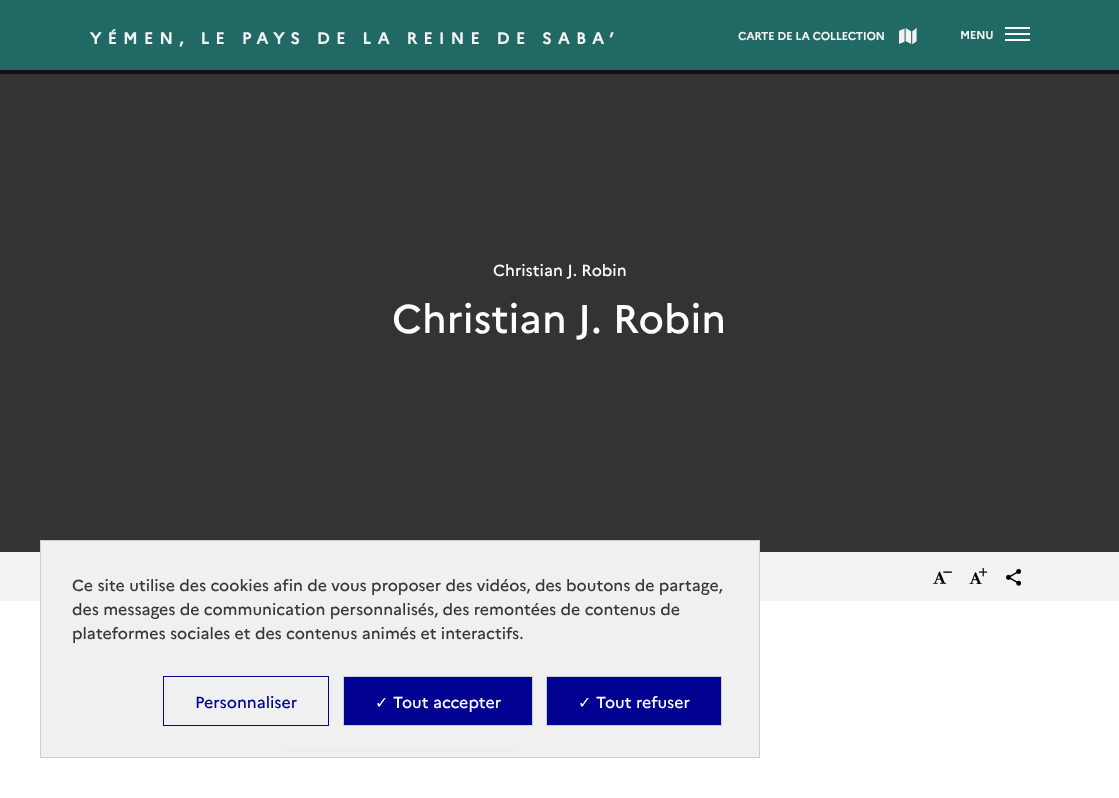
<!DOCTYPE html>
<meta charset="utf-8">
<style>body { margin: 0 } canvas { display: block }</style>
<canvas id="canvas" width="1119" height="798"></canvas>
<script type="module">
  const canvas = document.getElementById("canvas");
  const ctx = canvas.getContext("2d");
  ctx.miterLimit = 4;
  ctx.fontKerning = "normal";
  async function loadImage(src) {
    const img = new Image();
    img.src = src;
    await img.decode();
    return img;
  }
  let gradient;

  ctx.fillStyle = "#111111";
  ctx.fillRect(0, 0, 1119, 798);
  ctx.fillStyle = "#206965";
  ctx.fillRect(0, 0, 1119, 70);
  ctx.letterSpacing = "6.4px";
  ctx.font = "bold 16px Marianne";
  ctx.fillStyle = "#f3f3f3";
  ctx.fillText("YÉMEN, LE PAYS DE LA REINE DE SABA’", 90, 44);
  ctx.letterSpacing = "0px";
  ctx.font = "bold 11px Marianne";
  ctx.fillText("CARTE DE LA COLLECTION", 738, 40);
  ctx.drawImage(await loadImage("img1.png"), 899, 28, 18, 16);
  ctx.fillText("MENU", 960, 39);
  ctx.fillStyle = "#ffffff";
  ctx.fillRect(1005, 33, 25, 2);
  ctx.fillRect(1005, 27, 25, 2);
  ctx.fillRect(1005, 39, 25, 2);
  ctx.fillStyle = "#333333";
  ctx.fillRect(0, 74, 1119, 478);
  ctx.font = "500 16px Marianne";
  ctx.fillStyle = "#ffffff";
  ctx.fillText("Christian J. Robin", 493, 276);
  ctx.font = "500 40px Marianne";
  ctx.fillText("Christian J. Robin", 392, 333);
  ctx.fillRect(0, 601, 1119, 197);
  ctx.fillStyle = "#f3f3f3";
  ctx.fillRect(0, 552, 1119, 49);
  ctx.drawImage(await loadImage("img2.png"), 933, 571, 19, 13);
  ctx.drawImage(await loadImage("img3.png"), 969, 568, 18, 16);
  ctx.drawImage(await loadImage("img4.png"), 1006, 569, 15, 17);
  ctx.fillStyle = "#f0f0f0";
  ctx.fillRect(41, 546, 718, 202);
  gradient = ctx.createRadialGradient(400, 27288, 0, 400, 27288, 360);
  gradient.addColorStop(0, "#898989");
  gradient.addColorStop(1, "#f0f0f0");
  ctx.fillStyle = gradient;
  ctx.beginPath();
  ctx.rect(41, 748, 718, 4);
  ctx.save();
  ctx.clip();
  ctx.scale(1, 10 / 360);
  ctx.fillRect(0, 0, 1119, 28728);
  ctx.restore();
  gradient = ctx.createLinearGradient(400, 740, 400, 758);
  gradient.addColorStop(0, "rgba(240, 240, 240, 0)");
  gradient.addColorStop(0.66, "#f0f0f0");
  ctx.fillStyle = gradient;
  ctx.fillRect(41, 748, 718, 9);
  gradient = ctx.createLinearGradient(400, 540, 400, 558);
  gradient.addColorStop(0.33, "#f0f0f0");
  gradient.addColorStop(1, "rgba(240, 240, 240, 0)");
  ctx.fillStyle = gradient;
  ctx.fillRect(41, 541, 718, 5);
  ctx.strokeStyle = "#cecece";
  ctx.strokeRect(40.5, 540.5, 719, 217);
  ctx.font = "500 16px Marianne";
  ctx.fillStyle = "#383838";
  ctx.fillText("Ce site utilise des cookies afin de vous proposer des vidéos, des boutons de partage,", 72, 591);
  ctx.fillText("des messages de communication personnalisés, des remontées de contenus de", 72, 615);
  ctx.fillText("plateformes sociales et des contenus animés et interactifs.", 72, 639);
  ctx.strokeStyle = "#000091";
  ctx.strokeRect(163.5, 676.5, 165, 49);
  ctx.fillStyle = "#000091";
  ctx.fillText("Personnaliser", 195, 708);
  ctx.beginPath();
  ctx.rect(343.5, 676.5, 189, 49);
  ctx.fill();
  ctx.strokeStyle = "#cecece";
  ctx.stroke();
  ctx.font = "16px DejaVu Sans";
  ctx.fillStyle = "#ffffff";
  ctx.fillText("✓", 375, 708);
  ctx.font = "500 16px Marianne";
  ctx.fillText("Tout accepter", 393, 708);
  ctx.fillStyle = "#000091";
  ctx.beginPath();
  ctx.rect(546.5, 676.5, 175, 49);
  ctx.fill();
  ctx.stroke();
  ctx.font = "16px DejaVu Sans";
  ctx.fillStyle = "#ffffff";
  ctx.fillText("✓", 578, 708);
  ctx.font = "500 16px Marianne";
  ctx.fillText("Tout refuser", 596, 708);
</script>
